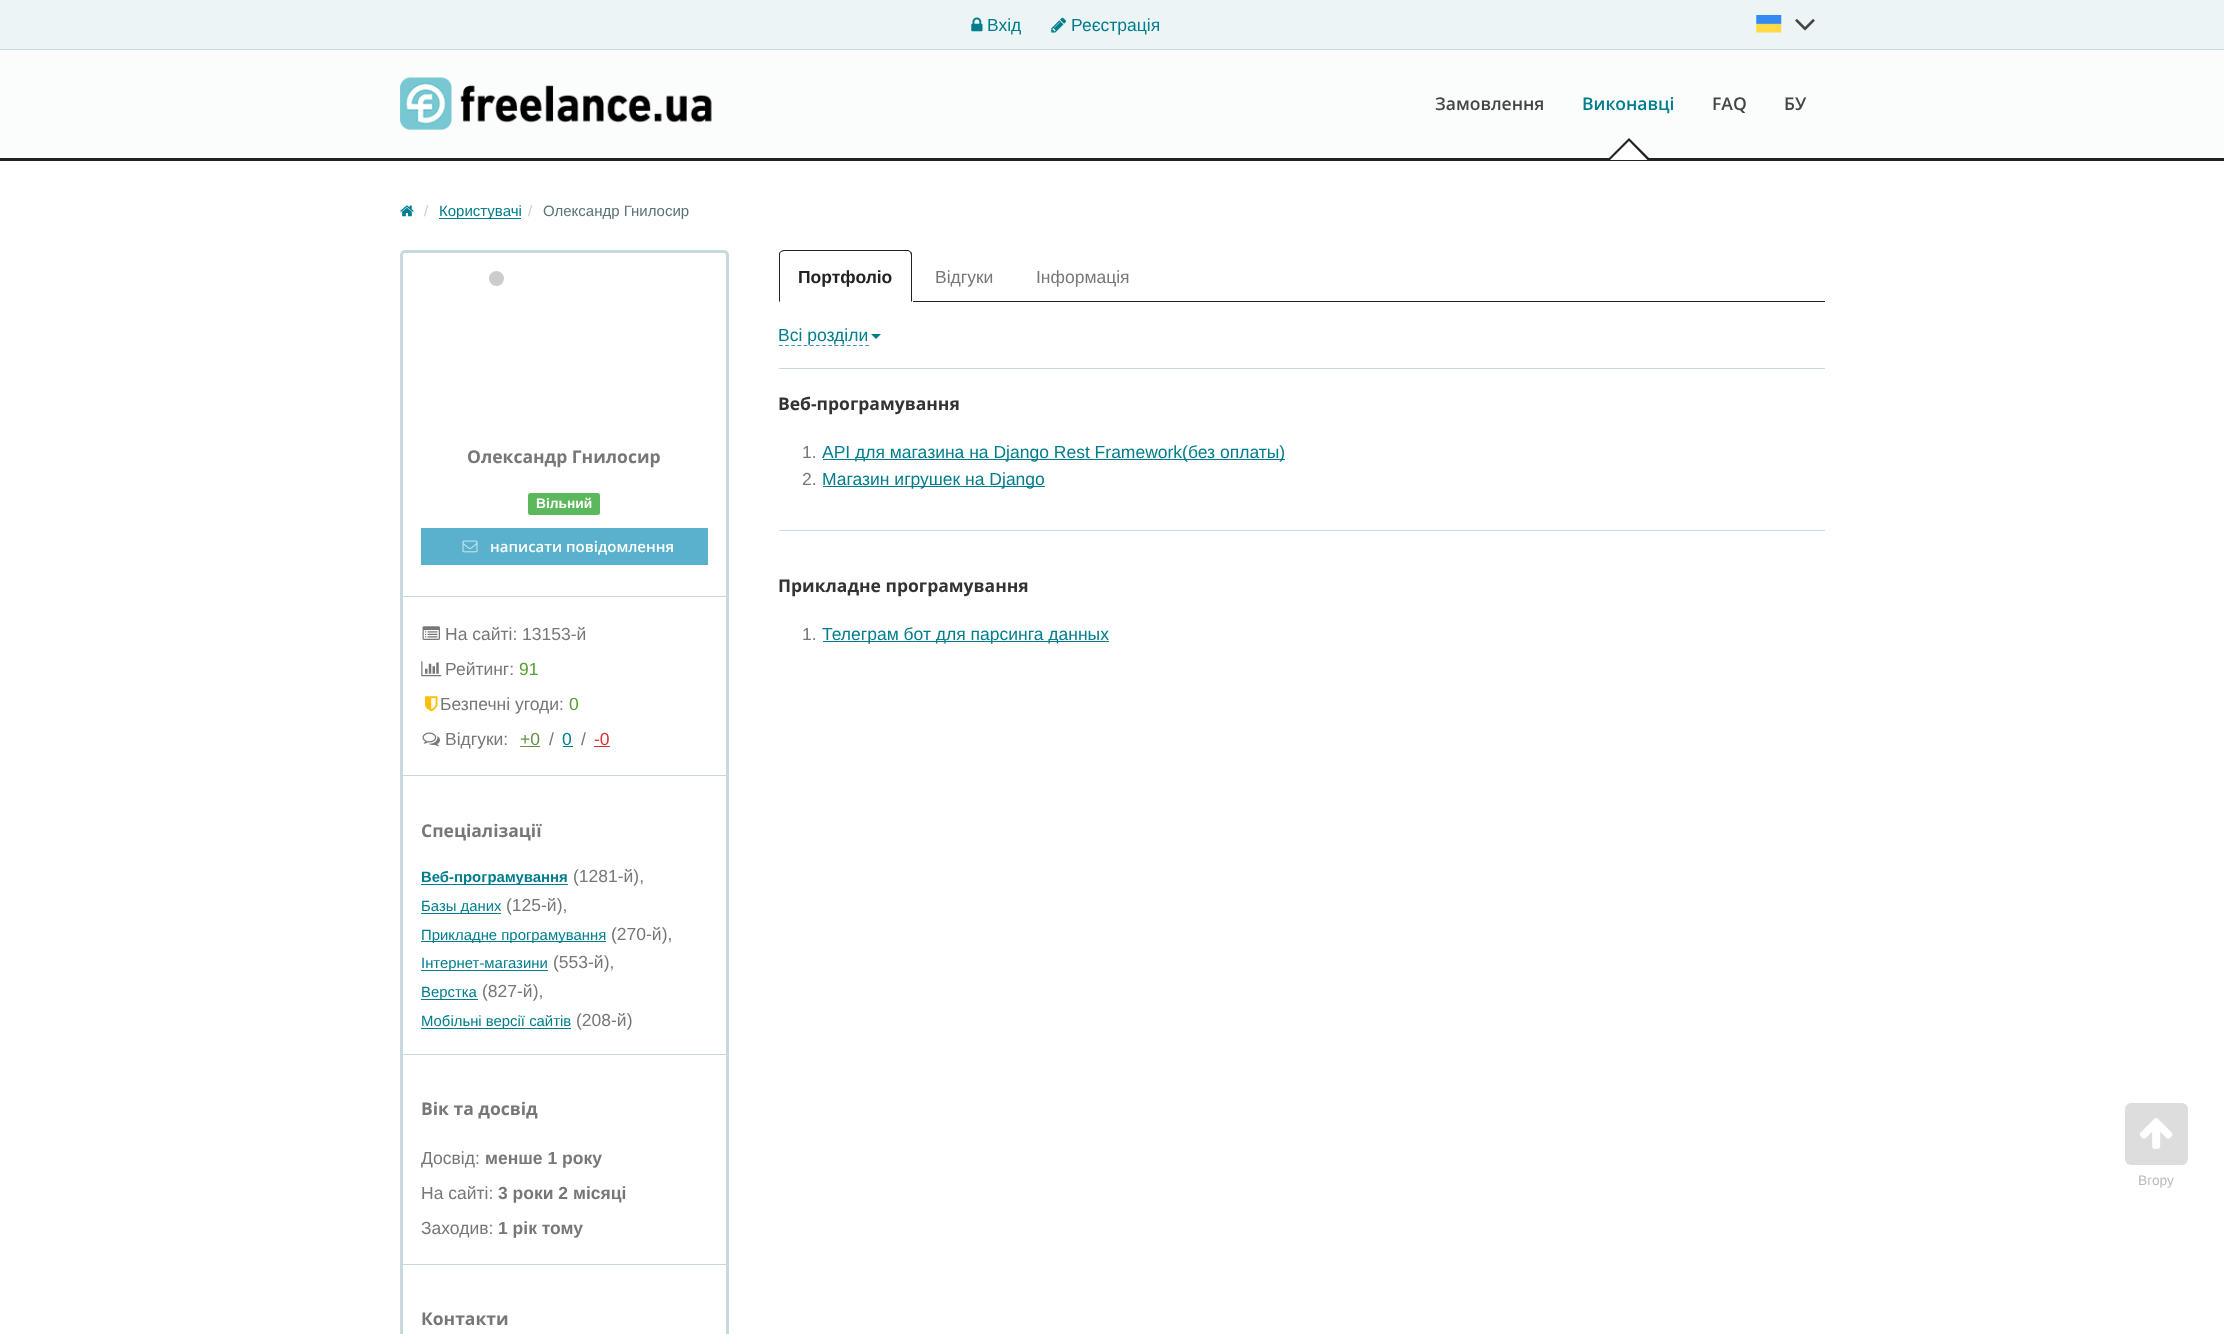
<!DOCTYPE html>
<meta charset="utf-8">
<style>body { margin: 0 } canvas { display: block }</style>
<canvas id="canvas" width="2224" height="1334"></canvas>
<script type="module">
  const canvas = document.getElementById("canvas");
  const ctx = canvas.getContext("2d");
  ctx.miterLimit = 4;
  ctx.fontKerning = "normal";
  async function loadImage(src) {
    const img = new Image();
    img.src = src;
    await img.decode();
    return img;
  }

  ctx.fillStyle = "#ffffff";
  ctx.fillRect(0, 0, 2224, 1334);
  ctx.fillStyle = "#edf4f5";
  ctx.fillRect(0, 0, 2224, 49);
  ctx.fillStyle = "#c7d9df";
  ctx.fillRect(0, 49, 2224, 1);
  ctx.drawImage(await loadImage("img1.png"), 971, 17, 12, 15);
  ctx.font = "17.5px Liberation Sans";
  ctx.fillStyle = "#007d8c";
  ctx.fillText("Вхід", 987, 31);
  ctx.drawImage(await loadImage("img2.png"), 1051, 17, 15, 16);
  ctx.fillText("Реєстрація", 1071, 31);
  ctx.drawImage(await loadImage("img3.png"), 1756, 15, 26, 18);
  ctx.drawImage(await loadImage("img4.png"), 1795, 19, 20, 12);
  ctx.fillStyle = "#fbfcfc";
  ctx.fillRect(0, 50, 2224, 108);
  ctx.fillStyle = "#222222";
  ctx.fillRect(0, 158, 2224, 3);
  ctx.drawImage(await loadImage("img5.png"), 400, 77, 312, 53);
  ctx.font = "600 17.5px Open Sans";
  ctx.fillStyle = "#444444";
  ctx.fillText("Замовлення", 1435, 110);
  ctx.fillStyle = "#007d8c";
  ctx.fillText("Виконавці", 1582, 110);
  ctx.fillStyle = "#222222";
  ctx.beginPath();
  ctx.moveTo(1650, 159);
  ctx.lineTo(1608, 159);
  ctx.lineTo(1629, 138);
  ctx.closePath();
  ctx.fill();
  ctx.fillStyle = "#ffffff";
  ctx.beginPath();
  ctx.moveTo(1647.5, 160);
  ctx.lineTo(1610, 160);
  ctx.lineTo(1629, 141);
  ctx.closePath();
  ctx.fill();
  ctx.fillStyle = "#444444";
  ctx.fillText("FAQ", 1712, 110);
  ctx.fillText("БУ", 1784, 110);
  ctx.drawImage(await loadImage("img6.png"), 400, 205, 14, 12);
  ctx.font = "15px Liberation Sans";
  ctx.fillStyle = "#cccccc";
  ctx.fillText("/", 424, 216);
  ctx.fillStyle = "#007d8c";
  ctx.fillRect(439, 218, 82, 1);
  ctx.fillText("Користувачі", 439, 216);
  ctx.fillStyle = "#cccccc";
  ctx.fillText("/", 528, 216);
  ctx.fillStyle = "#5a7273";
  ctx.fillText("Олександр Гнилосир", 543, 216);
  ctx.beginPath();
  ctx.roundRect(401.5, 251.5, 326, 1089, 3.5);
  ctx.strokeStyle = "#c7d9df";
  ctx.lineWidth = 3;
  ctx.stroke();
  ctx.fillStyle = "#c7d9df";
  ctx.fillRect(403, 596, 323, 1);
  ctx.fillStyle = "#cccccc";
  ctx.beginPath();
  ctx.arc(496.5, 278.5, 7.5, 0, Math.PI * 2);
  ctx.fill();
  ctx.font = "bold 17.5px Open Sans";
  ctx.fillStyle = "#777777";
  ctx.fillText("Олександр Гнилосир", 467, 463);
  ctx.fillStyle = "#5cb85c";
  ctx.beginPath();
  ctx.roundRect(528, 493, 72, 22, 2.5);
  ctx.fill();
  ctx.font = "bold 13.75px Liberation Sans";
  ctx.fillStyle = "#ffffff";
  ctx.fillText("Вільний", 536, 508);
  ctx.fillStyle = "#59b1ce";
  ctx.fillRect(421, 528, 287, 37);
  ctx.drawImage(await loadImage("img7.png"), 462, 540, 16, 13);
  ctx.font = "600 15px Open Sans";
  ctx.fillStyle = "#ffffff";
  ctx.fillText("написати повідомлення", 490, 552);
  ctx.fillStyle = "#c7d9df";
  ctx.fillRect(403, 775, 323, 1);
  ctx.drawImage(await loadImage("img8.png"), 422, 626, 18, 14);
  ctx.font = "17.5px Liberation Sans";
  ctx.fillStyle = "#777777";
  ctx.fillText("На сайті: 13153-й", 445, 640);
  ctx.drawImage(await loadImage("img9.png"), 421, 661, 21, 16);
  ctx.fillText("Рейтинг:", 445, 675);
  ctx.fillStyle = "#56a230";
  ctx.fillText("91", 519, 675);
  ctx.drawImage(await loadImage("img10.png"), 425, 696, 13, 16);
  ctx.fillStyle = "#777777";
  ctx.fillText("Безпечні угоди:", 440, 710);
  ctx.fillStyle = "#56a230";
  ctx.fillText("0", 569, 710);
  ctx.drawImage(await loadImage("img11.png"), 422, 732, 18, 15);
  ctx.fillStyle = "#777777";
  ctx.fillText("Відгуки:", 445, 745);
  ctx.fillStyle = "#698e49";
  ctx.fillText("+0", 520, 745);
  ctx.fillRect(520, 746, 20, 1);
  ctx.fillStyle = "#777777";
  ctx.fillText("/", 549, 745);
  ctx.fillStyle = "#007d8c";
  ctx.fillText("0", 562, 745);
  ctx.fillRect(563, 746, 10, 1);
  ctx.fillStyle = "#777777";
  ctx.fillText("/", 581, 745);
  ctx.fillStyle = "#d53333";
  ctx.fillText("-0", 594, 745);
  ctx.fillRect(594, 746, 16, 1);
  ctx.fillStyle = "#c7d9df";
  ctx.fillRect(403, 1054, 323, 1);
  ctx.font = "bold 17.5px Open Sans";
  ctx.fillStyle = "#777777";
  ctx.fillText("Спеціалізації", 421, 837);
  ctx.fillStyle = "#007d8c";
  ctx.fillRect(421, 884, 147, 1);
  ctx.font = "bold 14.9px Liberation Sans";
  ctx.fillText("Веб-програмування", 421, 882);
  ctx.font = "17.5px Liberation Sans";
  ctx.fillStyle = "#777777";
  ctx.fillText("(1281-й),", 573, 882);
  ctx.fillStyle = "#007d8c";
  ctx.fillRect(421, 913, 80, 1);
  ctx.font = "14.9px Liberation Sans";
  ctx.fillText("Базы даних", 421, 911);
  ctx.font = "17.5px Liberation Sans";
  ctx.fillStyle = "#777777";
  ctx.fillText("(125-й),", 506, 911);
  ctx.fillStyle = "#007d8c";
  ctx.fillRect(421, 941, 185, 1);
  ctx.font = "14.9px Liberation Sans";
  ctx.fillText("Прикладне програмування", 421, 940);
  ctx.font = "17.5px Liberation Sans";
  ctx.fillStyle = "#777777";
  ctx.fillText("(270-й),", 611, 940);
  ctx.fillStyle = "#007d8c";
  ctx.fillRect(421, 970, 127, 1);
  ctx.font = "14.9px Liberation Sans";
  ctx.fillText("Інтернет-магазини", 421, 968);
  ctx.font = "17.5px Liberation Sans";
  ctx.fillStyle = "#777777";
  ctx.fillText("(553-й),", 553, 968);
  ctx.fillStyle = "#007d8c";
  ctx.fillRect(421, 999, 57, 1);
  ctx.font = "14.9px Liberation Sans";
  ctx.fillText("Верстка", 421, 997);
  ctx.font = "17.5px Liberation Sans";
  ctx.fillStyle = "#777777";
  ctx.fillText("(827-й),", 482, 997);
  ctx.fillStyle = "#007d8c";
  ctx.fillRect(421, 1028, 150, 1);
  ctx.font = "14.9px Liberation Sans";
  ctx.fillText("Мобільні версії сайтів", 421, 1026);
  ctx.font = "17.5px Liberation Sans";
  ctx.fillStyle = "#777777";
  ctx.fillText("(208-й)", 576, 1026);
  ctx.fillStyle = "#c7d9df";
  ctx.fillRect(403, 1264, 323, 1);
  ctx.font = "bold 17.5px Open Sans";
  ctx.fillStyle = "#777777";
  ctx.fillText("Вік та досвід", 421, 1115);
  ctx.font = "17.5px Liberation Sans";
  ctx.fillText("Досвід:", 421, 1164);
  ctx.font = "bold 17.5px Liberation Sans";
  ctx.fillText("менше 1 року", 485, 1164);
  ctx.font = "17.5px Liberation Sans";
  ctx.fillText("На сайті:", 421, 1199);
  ctx.font = "bold 17.5px Liberation Sans";
  ctx.fillText("3 роки 2 місяці", 498, 1199);
  ctx.font = "17.5px Liberation Sans";
  ctx.fillText("Заходив:", 421, 1234);
  ctx.font = "bold 17.5px Liberation Sans";
  ctx.fillText("1 рік тому", 498, 1234);
  ctx.font = "bold 17.5px Open Sans";
  ctx.fillText("Контакти", 421, 1325);
  ctx.fillStyle = "#222222";
  ctx.fillRect(913, 301, 912, 1);
  ctx.beginPath();
  ctx.moveTo(784, 250);
  ctx.bezierCurveTo(782, 250, 781, 251, 780, 252);
  ctx.lineTo(781, 252);
  ctx.lineTo(784, 251);
  ctx.lineTo(908, 251);
  ctx.lineTo(910, 252);
  ctx.lineTo(911, 252);
  ctx.bezierCurveTo(910, 251, 909, 250, 908, 250);
  ctx.closePath();
  ctx.fill();
  ctx.beginPath();
  ctx.moveTo(911, 252);
  ctx.bezierCurveTo(912, 252, 912, 254, 912, 255);
  ctx.lineTo(912, 302);
  ctx.lineTo(911, 301);
  ctx.lineTo(911, 255);
  ctx.lineTo(910, 252);
  ctx.closePath();
  ctx.fill();
  ctx.beginPath();
  ctx.moveTo(780, 252);
  ctx.bezierCurveTo(779, 252, 779, 254, 779, 255);
  ctx.lineTo(779, 302);
  ctx.lineTo(780, 301);
  ctx.lineTo(780, 255);
  ctx.bezierCurveTo(780, 254, 780, 253, 781, 252);
  ctx.closePath();
  ctx.fill();
  ctx.font = "bold 17.5px Liberation Sans";
  ctx.fillText("Портфоліо", 798, 283);
  ctx.font = "17.5px Liberation Sans";
  ctx.fillStyle = "#777777";
  ctx.fillText("Відгуки", 935, 283);
  ctx.fillText("Інформація", 1036, 283);
  ctx.fillStyle = "#c7d9df";
  ctx.fillRect(779, 368, 1046, 1);
  ctx.beginPath();
  ctx.moveTo(779, 345.5);
  ctx.lineTo(869, 345.5);
  ctx.strokeStyle = "#428bca";
  ctx.lineWidth = 1.2;
  ctx.setLineDash([3.75, 2.41]);
  ctx.stroke();
  ctx.fillStyle = "#007d8c";
  ctx.fillText("Всі розділи", 778, 341);
  ctx.beginPath();
  ctx.moveTo(871, 334);
  ctx.lineTo(881, 334);
  ctx.lineTo(876, 339);
  ctx.closePath();
  ctx.fill();
  ctx.font = "bold 17.5px Open Sans";
  ctx.fillStyle = "#333333";
  ctx.fillText("Веб-програмування", 778, 410);
  ctx.font = "17.5px Liberation Sans";
  ctx.fillStyle = "#777777";
  ctx.fillText("1.", 802, 458);
  ctx.fillStyle = "#007d8c";
  ctx.fillRect(823, 459, 462, 1);
  ctx.fillText("API для магазина на Django Rest Framework(без оплаты)", 822, 458);
  ctx.fillStyle = "#777777";
  ctx.fillText("2.", 802, 485);
  ctx.fillStyle = "#007d8c";
  ctx.fillRect(823, 486, 222, 1);
  ctx.fillText("Магазин игрушек на Django", 822, 485);
  ctx.fillStyle = "#c7d9df";
  ctx.fillRect(779, 530, 1046, 1);
  ctx.font = "bold 17.5px Open Sans";
  ctx.fillStyle = "#333333";
  ctx.fillText("Прикладне програмування", 778, 592);
  ctx.font = "17.5px Liberation Sans";
  ctx.fillStyle = "#777777";
  ctx.fillText("1.", 802, 640);
  ctx.fillStyle = "#007d8c";
  ctx.fillRect(823, 641, 286, 1);
  ctx.fillText("Телеграм бот для парсинга данных", 822, 640);
  ctx.fillStyle = "#dddddd";
  ctx.beginPath();
  ctx.roundRect(2125, 1103, 63, 62, 6);
  ctx.fill();
  ctx.drawImage(await loadImage("img12.png"), 2140, 1118, 33, 31);
  ctx.font = "13.75px Liberation Sans";
  ctx.fillStyle = "#bbbbbb";
  ctx.fillText("Вгору", 2138, 1185);
</script>
